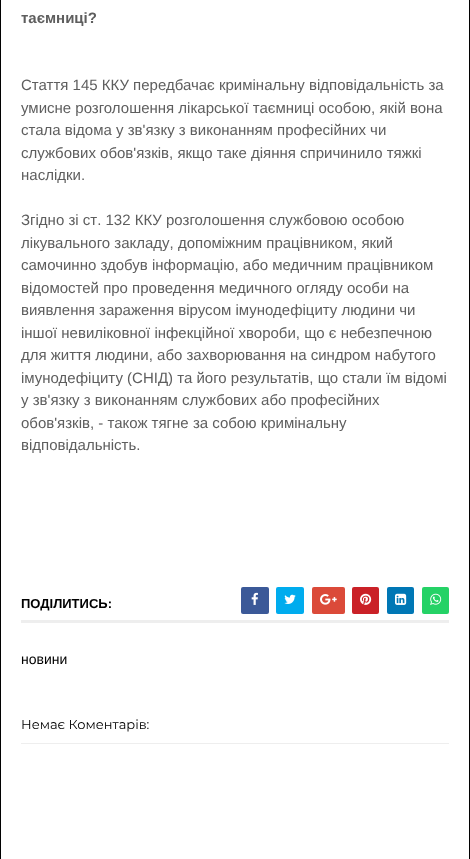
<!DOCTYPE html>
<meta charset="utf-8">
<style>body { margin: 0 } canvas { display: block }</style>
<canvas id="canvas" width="470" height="859"></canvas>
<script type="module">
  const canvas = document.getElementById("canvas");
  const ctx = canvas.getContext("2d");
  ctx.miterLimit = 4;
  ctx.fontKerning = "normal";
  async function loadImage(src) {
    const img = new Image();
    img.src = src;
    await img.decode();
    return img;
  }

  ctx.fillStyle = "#ffffff";
  ctx.fillRect(0, 0, 470, 859);
  ctx.fillStyle = "#010101";
  ctx.fillRect(469, 0, 1, 859);
  ctx.fillRect(0, 0, 1, 859);
  ctx.font = "bold 15px Arimo";
  ctx.fillStyle = "#5e5e5e";
  ctx.fillText("таємниці?", 21, 23);
  ctx.font = "15px Arimo";
  ctx.fillText("Стаття 145 ККУ передбачає кримінальну відповідальність за", 21, 90);
  ctx.fillText("умисне розголошення лікарської таємниці особою, якій вона", 21, 113);
  ctx.fillText("стала відома у зв'язку з виконанням професійних чи", 21, 135);
  ctx.fillText("службових обов'язків, якщо таке діяння спричинило тяжкі", 21, 158);
  ctx.fillText("наслідки.", 21, 180);
  ctx.fillText("Згідно зі ст. 132 ККУ розголошення службовою особою", 21, 225);
  ctx.fillText("лікувального закладу, допоміжним працівником, який", 21, 248);
  ctx.fillText("самочинно здобув інформацію, або медичним працівником", 21, 270);
  ctx.fillText("відомостей про проведення медичного огляду особи на", 21, 293);
  ctx.fillText("виявлення зараження вірусом імунодефіциту людини чи", 21, 315);
  ctx.fillText("іншої невиліковної інфекційної хвороби, що є небезпечною", 21, 338);
  ctx.fillText("для життя людини, або захворювання на синдром набутого", 21, 360);
  ctx.fillText("імунодефіциту (СНІД) та його результатів, що стали їм відомі", 21, 383);
  ctx.fillText("у зв'язку з виконанням службових або професійних", 21, 405);
  ctx.fillText("обов'язків, - також тягне за собою кримінальну", 21, 428);
  ctx.fillText("відповідальність.", 21, 450);
  ctx.fillStyle = "#eeeeee";
  ctx.fillRect(21, 620, 428, 3);
  ctx.font = "bold 13px Arimo";
  ctx.fillStyle = "#010101";
  ctx.fillText("ПОДІЛИТИСЬ:", 21, 608);
  ctx.fillStyle = "#3b5998";
  ctx.beginPath();
  ctx.roundRect(241, 587, 28, 27, 2);
  ctx.fill();
  ctx.drawImage(await loadImage("img1.png"), 251, 592, 7, 13);
  ctx.fillStyle = "#00acee";
  ctx.beginPath();
  ctx.roundRect(276, 587, 28, 27, 2);
  ctx.fill();
  ctx.drawImage(await loadImage("img2.png"), 284, 594, 12, 10);
  ctx.fillStyle = "#db4a39";
  ctx.beginPath();
  ctx.roundRect(312, 587, 33, 27, 2);
  ctx.fill();
  ctx.drawImage(await loadImage("img3.png"), 320, 594, 17, 11);
  ctx.fillStyle = "#ca2127";
  ctx.beginPath();
  ctx.roundRect(352, 587, 27, 27, 2);
  ctx.fill();
  ctx.drawImage(await loadImage("img4.png"), 360, 593, 12, 12);
  ctx.fillStyle = "#0077b5";
  ctx.beginPath();
  ctx.roundRect(387, 587, 27, 27, 2);
  ctx.fill();
  ctx.drawImage(await loadImage("img5.png"), 395, 593, 12, 12);
  ctx.fillStyle = "#25d266";
  ctx.beginPath();
  ctx.roundRect(422, 587, 27, 27, 2);
  ctx.fill();
  ctx.drawImage(await loadImage("img6.png"), 430, 593, 12, 12);
  ctx.font = "14px Arimo";
  ctx.fillStyle = "#010101";
  ctx.fillText("новини", 21, 664);
  ctx.fillStyle = "#eeeeee";
  ctx.fillRect(21, 743, 428, 1);
  ctx.font = "13px Montserrat";
  ctx.fillStyle = "#010101";
  ctx.fillText("Немає Коментарів:", 21, 729);
</script>
